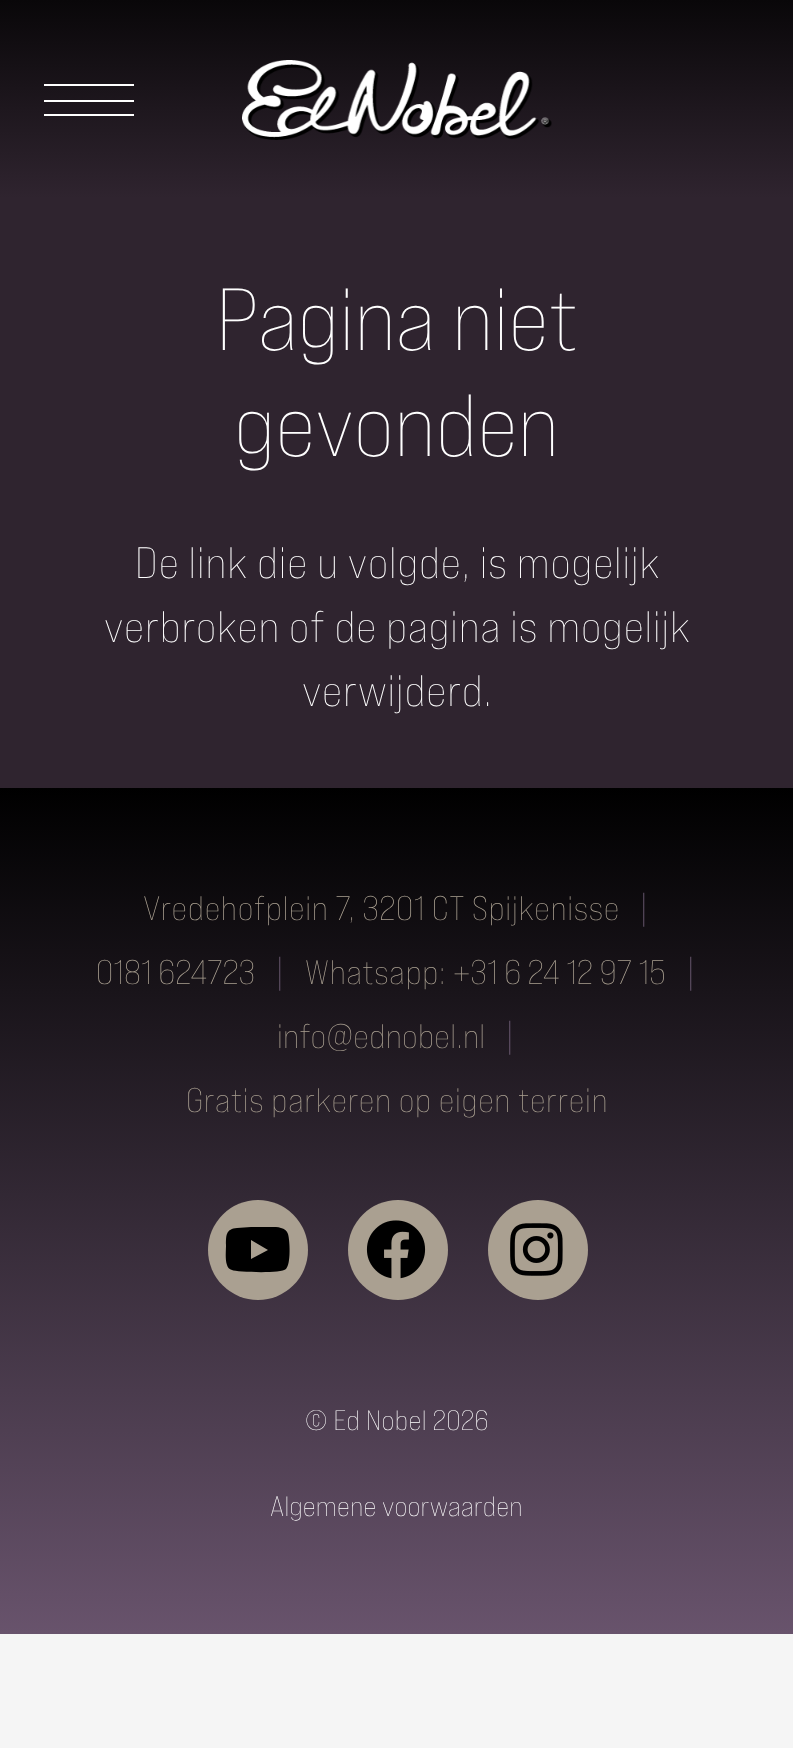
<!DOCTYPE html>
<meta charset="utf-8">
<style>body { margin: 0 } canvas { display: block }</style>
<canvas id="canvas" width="793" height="1748"></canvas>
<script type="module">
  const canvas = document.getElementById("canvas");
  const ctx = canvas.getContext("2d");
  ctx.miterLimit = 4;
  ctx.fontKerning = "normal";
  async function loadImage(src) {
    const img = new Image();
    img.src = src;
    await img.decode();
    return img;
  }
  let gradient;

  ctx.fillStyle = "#f5f5f5";
  ctx.fillRect(0, 0, 793, 1748);
  ctx.fillStyle = "#2f242f";
  ctx.fillRect(0, 200, 793, 588);
  gradient = ctx.createLinearGradient(397, 0, 397, 200);
  gradient.addColorStop(0, "#090709");
  gradient.addColorStop(0.99, "#2f242f");
  ctx.fillStyle = gradient;
  ctx.fillRect(0, 0, 793, 200);
  ctx.fillStyle = "#ffffff";
  ctx.fillRect(44, 100, 90, 2);
  ctx.fillRect(44, 84, 90, 2);
  ctx.fillRect(44, 114, 90, 2);
  ctx.drawImage(await loadImage("img1.png"), 242, 60, 310, 80);
  ctx.font = "300 88px Bebas Neue";
  ctx.fillText("Pagina niet", 216, 350);
  ctx.fillText("gevonden", 234, 456);
  ctx.letterSpacing = "0.9px";
  ctx.font = "300 44px Bebas Neue";
  ctx.fillText("De link die u volgde, is mogelijk", 135, 578);
  ctx.fillText("verbroken of de pagina is mogelijk", 104, 642);
  ctx.fillText("verwijderd.", 302, 706);
  gradient = ctx.createLinearGradient(397, 788, 397, 1634);
  gradient.addColorStop(0, "#000000");
  gradient.addColorStop(1, "#68536c");
  ctx.fillStyle = gradient;
  ctx.fillRect(0, 788, 793, 846);
  ctx.letterSpacing = "0.7px";
  ctx.font = "300 34px Bebas Neue";
  ctx.fillStyle = "#aaa091";
  ctx.fillText("Vredehofplein 7, 3201 CT Spijkenisse", 143, 920);
  ctx.fillStyle = "#816e8b";
  ctx.fillText("|", 637, 920);
  ctx.letterSpacing = "0.3px";
  ctx.fillStyle = "#aaa091";
  ctx.fillText("0181 624723", 96, 984);
  ctx.letterSpacing = "0.7px";
  ctx.fillStyle = "#816e8b";
  ctx.fillText("|", 273, 984);
  ctx.fillStyle = "#aaa091";
  ctx.fillText("Whatsapp:", 305, 984);
  ctx.letterSpacing = "0.3px";
  ctx.fillText("+31 6 24 12 97 15", 453, 984);
  ctx.letterSpacing = "0.7px";
  ctx.fillStyle = "#816e8b";
  ctx.fillText("|", 684, 984);
  ctx.letterSpacing = "0.3px";
  ctx.fillStyle = "#aaa091";
  ctx.fillText("info@ednobel.nl", 277, 1048);
  ctx.letterSpacing = "0.7px";
  ctx.fillStyle = "#816e8b";
  ctx.fillText("|", 503, 1048);
  ctx.fillStyle = "#aaa091";
  ctx.fillText("Gratis parkeren op eigen terrein", 186, 1112);
  ctx.beginPath();
  ctx.arc(258, 1250, 50, 0, Math.PI * 2);
  ctx.fill();
  ctx.fillStyle = "#000000";
  ctx.beginPath();
  ctx.moveTo(288, 1234);
  ctx.bezierCurveTo(290, 1241, 291, 1264, 286, 1269);
  ctx.bezierCurveTo(281, 1274, 236, 1272, 232, 1270);
  ctx.bezierCurveTo(229, 1269, 228, 1268, 227, 1265);
  ctx.bezierCurveTo(225, 1259, 226, 1251, 226, 1245);
  ctx.bezierCurveTo(226, 1235, 226, 1229, 237, 1228);
  ctx.lineTo(251, 1227);
  ctx.lineTo(271, 1227);
  ctx.bezierCurveTo(277, 1227, 286, 1227, 288, 1234);
  ctx.closePath();
  ctx.moveTo(251, 1259);
  ctx.lineTo(268, 1250);
  ctx.lineTo(251, 1240);
  ctx.closePath();
  ctx.fill();
  ctx.fillStyle = "#aaa091";
  ctx.beginPath();
  ctx.arc(398, 1250, 50, 0, Math.PI * 2);
  ctx.fill();
  ctx.drawImage(await loadImage("img2.png"), 366, 1220, 60, 59);
  ctx.beginPath();
  ctx.arc(538, 1250, 50, 0, Math.PI * 2);
  ctx.fill();
  ctx.drawImage(await loadImage("img3.png"), 510, 1223, 53, 53);
  ctx.letterSpacing = "0.5px";
  ctx.font = "300 28px Bebas Neue";
  ctx.fillStyle = "#ffffff";
  ctx.fillText("© Ed Nobel 2026", 305, 1430);
  ctx.letterSpacing = "0.25px";
  ctx.fillText("Algemene voorwaarden", 270, 1516);
</script>
